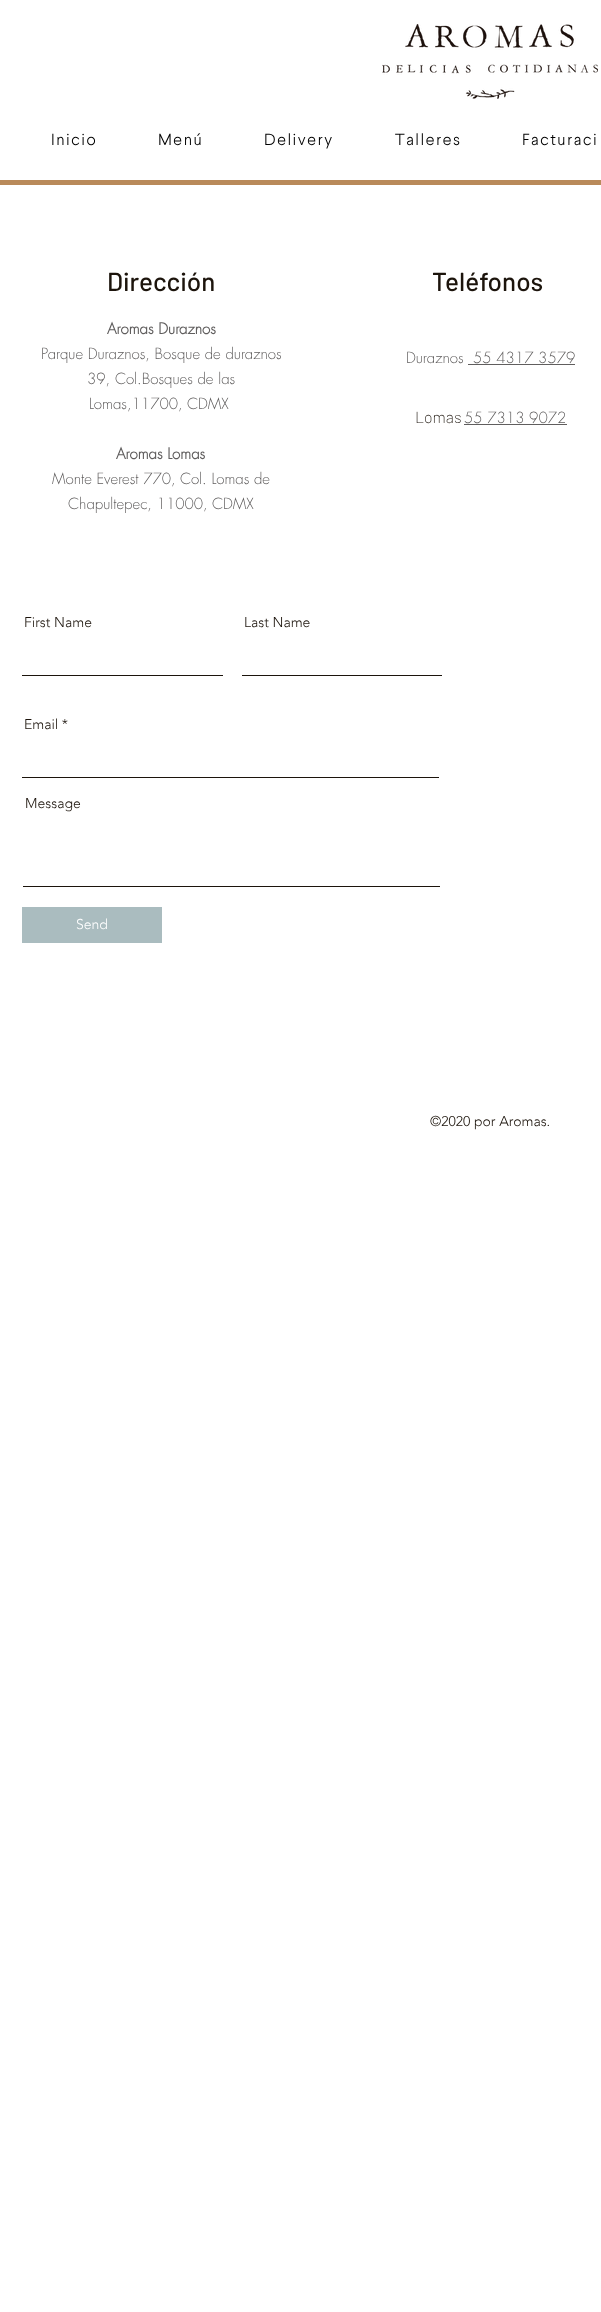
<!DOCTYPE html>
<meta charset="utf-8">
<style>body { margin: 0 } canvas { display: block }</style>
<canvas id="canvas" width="601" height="2312"></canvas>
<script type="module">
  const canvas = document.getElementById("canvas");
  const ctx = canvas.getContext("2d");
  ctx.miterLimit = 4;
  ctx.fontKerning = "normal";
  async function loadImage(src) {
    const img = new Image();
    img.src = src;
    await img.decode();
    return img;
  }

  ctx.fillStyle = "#ffffff";
  ctx.fillRect(0, 0, 601, 2312);
  ctx.drawImage(await loadImage("img1.png"), 382, 24, 216, 75);
  ctx.letterSpacing = "1.5px";
  ctx.font = "300 16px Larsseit";
  ctx.fillStyle = "#000000";
  ctx.fillText("Inicio", 51, 145);
  ctx.fillText("Menú", 158, 145);
  ctx.fillText("Delivery", 264, 145);
  ctx.fillText("Talleres", 395, 145);
  ctx.fillText("Facturaci", 522, 145);
  ctx.fillStyle = "#b98a5a";
  ctx.fillRect(0, 180, 601, 5);
  ctx.letterSpacing = "0px";
  ctx.font = "500 26px Barlow";
  ctx.fillStyle = "#1c140c";
  ctx.fillText("Dirección", 107, 291);
  ctx.fillText("Teléfonos", 432, 291);
  ctx.font = "bold 15px futura";
  ctx.fillStyle = "#605e5e";
  ctx.fillText("Aromas Duraznos", 107, 334);
  ctx.font = "300 15px futura";
  ctx.fillText("Parque Duraznos, Bosque de duraznos", 41, 359);
  ctx.fillText("39,", 87, 384);
  ctx.fillText("Col.Bosques de las", 115, 384);
  ctx.fillText("Lomas,11700,", 89, 409);
  ctx.fillText("CDMX", 187, 409);
  ctx.font = "bold 15px futura";
  ctx.fillText("Aromas Lomas", 116, 459);
  ctx.font = "300 15px futura";
  ctx.fillText("Monte Everest 770, Col. Lomas de", 52, 484);
  ctx.fillText("Chapultepec, 11000,", 68, 509);
  ctx.fillText("CDMX", 212, 509);
  ctx.fillText("Duraznos", 406, 363);
  ctx.fillText("55 4317 3579", 473, 363);
  ctx.fillRect(468, 364, 107, 1);
  ctx.font = "200 16px Barlow";
  ctx.fillStyle = "#1c140c";
  ctx.fillText("Lomas", 415, 423);
  ctx.font = "300 15px futura";
  ctx.fillStyle = "#605e5e";
  ctx.fillText("55 7313 9072", 464, 423);
  ctx.fillRect(464, 424, 103, 1);
  ctx.font = "300 14px 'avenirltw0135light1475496'";
  ctx.fillStyle = "#1c140c";
  ctx.fillText("First Name", 24, 627);
  ctx.fillRect(22, 675, 201, 1);
  ctx.fillText("Last Name", 244, 627);
  ctx.fillRect(242, 675, 200, 1);
  ctx.fillText("Email *", 24, 729);
  ctx.fillRect(22, 777, 417, 1);
  ctx.fillText("Message", 25, 808);
  ctx.fillRect(23, 886, 417, 1);
  ctx.fillStyle = "#aabcbf";
  ctx.fillRect(22, 907, 140, 36);
  ctx.fillStyle = "#ffffff";
  ctx.fillText("Send", 76, 929);
  ctx.fillStyle = "#1c140c";
  ctx.fillText("©2020 por Aromas.", 430, 1126);
</script>
